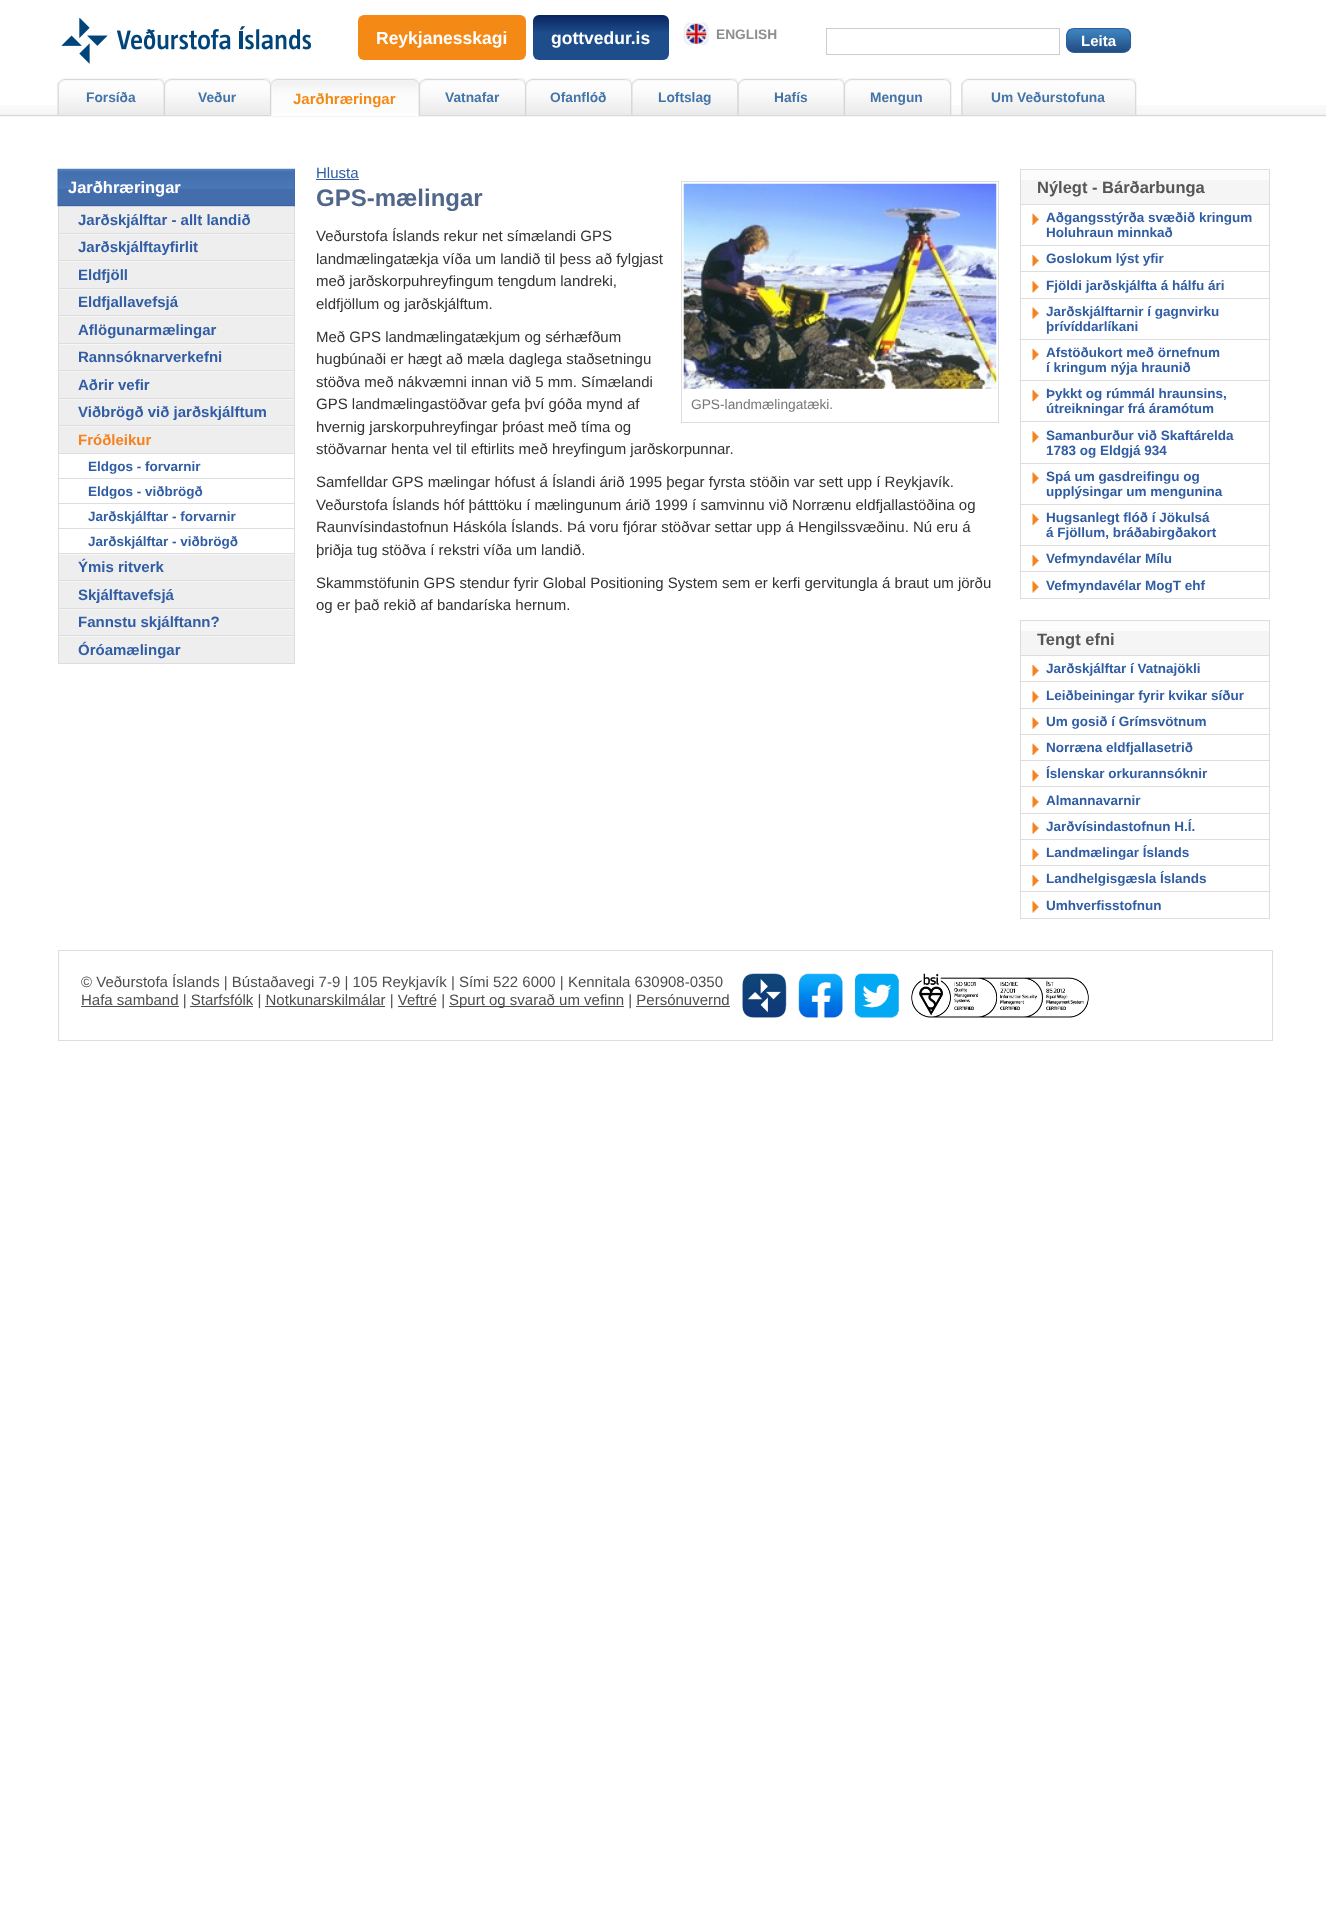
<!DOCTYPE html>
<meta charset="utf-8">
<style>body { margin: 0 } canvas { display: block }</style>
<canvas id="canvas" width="1326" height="1909"></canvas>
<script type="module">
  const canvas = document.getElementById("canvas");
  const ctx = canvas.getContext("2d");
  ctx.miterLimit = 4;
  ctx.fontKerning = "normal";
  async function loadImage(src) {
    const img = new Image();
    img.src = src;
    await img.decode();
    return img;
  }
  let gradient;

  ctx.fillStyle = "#ffffff";
  ctx.fillRect(0, 0, 1326, 1909);
  ctx.drawImage(await loadImage("img1.png"), 0, 105, 1326, 12);
  ctx.drawImage(await loadImage("img2.png"), 61, 18, 250, 46);
  ctx.fillStyle = "#f48916";
  ctx.beginPath();
  ctx.roundRect(358, 15, 168, 45, 6);
  ctx.fill();
  ctx.font = "bold 17.5px Liberation Sans";
  ctx.fillStyle = "#ffffff";
  ctx.fillText("Reykjanesskagi", 376, 44);
  gradient = ctx.createLinearGradient(601, 60, 601, 15);
  gradient.addColorStop(0.6, "#1e4d8b");
  gradient.addColorStop(1, "#072460");
  ctx.fillStyle = gradient;
  ctx.beginPath();
  ctx.roundRect(533, 15, 136, 45, 6);
  ctx.fill();
  ctx.fillStyle = "#ffffff";
  ctx.fillText("gottvedur.is", 551, 44);
  ctx.drawImage(await loadImage("img3.png"), 683, 22, 26, 23);
  ctx.font = "bold 13.75px Liberation Sans";
  ctx.fillStyle = "#8e8e8e";
  ctx.fillText("ENGLISH", 716, 39);
  ctx.strokeStyle = "#cccccc";
  ctx.strokeRect(826.5, 28.5, 233, 26);
  ctx.drawImage(await loadImage("img4.png"), 1066, 28, 66, 25);
  ctx.beginPath();
  ctx.roundRect(1066.5, 28.5, 64, 24, 7.5);
  ctx.strokeStyle = "#2e5f9c";
  ctx.stroke();
  ctx.font = "bold 15px Liberation Sans";
  ctx.fillStyle = "#ffffff";
  ctx.fillText("Leita", 1081, 46);
  ctx.strokeStyle = "#dddddd";
  ctx.strokeRect(58.5, 950.5, 1214, 90);
  ctx.font = "15px Liberation Sans";
  ctx.fillStyle = "#4e4e4e";
  ctx.fillText("© Veðurstofa Íslands | Bústaðavegi 7-9 | 105 Reykjavík | Sími 522 6000 | Kennitala 630908-0350", 81, 987);
  ctx.fillRect(81, 1006, 98, 1);
  ctx.fillText("Hafa samband | Starfsfólk | Notkunarskilmálar | Veftré |", 81, 1005);
  ctx.fillRect(449, 1006, 175, 1);
  ctx.fillText("Spurt og svarað um vefinn | Persónuvernd", 449, 1005);
  ctx.fillRect(190, 1006, 63, 1);
  ctx.fillRect(265, 1006, 120, 1);
  ctx.fillRect(398, 1006, 38, 1);
  ctx.fillRect(636, 1006, 94, 1);
  ctx.drawImage(await loadImage("img5.png"), 742, 973, 45, 45);
  ctx.drawImage(await loadImage("img6.png"), 798, 973, 45, 45);
  ctx.drawImage(await loadImage("img7.png"), 855, 973, 44, 45);
  ctx.drawImage(await loadImage("img8.png"), 911, 973, 178, 45);
  ctx.drawImage(await loadImage("img9.png"), 57, 78, 108, 37);
  ctx.drawImage(await loadImage("img10.png"), 157, 78, 8, 37);
  ctx.font = "bold 13.75px Liberation Sans";
  ctx.fillStyle = "#4374a8";
  ctx.fillText("Forsíða", 86, 102);
  ctx.drawImage(await loadImage("img11.png"), 163, 78, 109, 37);
  ctx.drawImage(await loadImage("img12.png"), 263, 78, 9, 37);
  ctx.fillText("Veður", 198, 102);
  ctx.drawImage(await loadImage("img13.png"), 270, 78, 150, 38);
  ctx.drawImage(await loadImage("img14.png"), 413, 78, 7, 39);
  ctx.font = "bold 15px Liberation Sans";
  ctx.fillStyle = "#f38915";
  ctx.fillText("Jarðhræringar", 293, 104);
  ctx.drawImage(await loadImage("img15.png"), 418, 78, 109, 37);
  ctx.drawImage(await loadImage("img16.png"), 518, 78, 9, 37);
  ctx.font = "bold 13.75px Liberation Sans";
  ctx.fillStyle = "#4374a8";
  ctx.fillText("Vatnafar", 445, 102);
  ctx.drawImage(await loadImage("img17.png"), 525, 78, 108, 37);
  ctx.drawImage(await loadImage("img18.png"), 625, 78, 8, 37);
  ctx.fillText("Ofanflóð", 550, 102);
  ctx.drawImage(await loadImage("img19.png"), 631, 78, 108, 37);
  ctx.drawImage(await loadImage("img20.png"), 731, 78, 8, 37);
  ctx.fillText("Loftslag", 658, 102);
  ctx.drawImage(await loadImage("img21.png"), 737, 78, 108, 37);
  ctx.drawImage(await loadImage("img22.png"), 837, 78, 8, 37);
  ctx.fillText("Hafís", 774, 102);
  ctx.drawImage(await loadImage("img23.png"), 843, 78, 109, 37);
  ctx.drawImage(await loadImage("img16.png"), 943, 78, 9, 37);
  ctx.fillText("Mengun", 870, 102);
  ctx.drawImage(await loadImage("img24.png"), 961, 78, 176, 37);
  ctx.drawImage(await loadImage("img16.png"), 1128, 78, 9, 37);
  ctx.fillText("Um Veðurstofuna", 991, 102);
  ctx.fillStyle = "#eeeeee";
  ctx.fillRect(59, 207, 235, 456);
  ctx.fillStyle = "#dddddd";
  ctx.fillRect(294, 206, 1, 458);
  ctx.fillRect(58, 206, 1, 458);
  ctx.fillStyle = "#f6f6f6";
  ctx.fillRect(59, 206, 235, 1);
  ctx.drawImage(await loadImage("img25.png"), 57, 168, 238, 39);
  ctx.fillStyle = "#446dac";
  ctx.fillRect(294, 169, 1, 20);
  ctx.fillStyle = "#3d62a4";
  ctx.fillRect(58, 205, 237, 1);
  ctx.fillStyle = "#446dac";
  ctx.fillRect(58, 169, 1, 37);
  ctx.font = "bold 16.5px Liberation Sans";
  ctx.fillStyle = "#ffffff";
  ctx.fillText("Jarðhræringar", 68, 193);
  ctx.fillStyle = "#dddddd";
  ctx.fillRect(59, 233, 235, 1);
  ctx.font = "bold 15px Liberation Sans";
  ctx.fillStyle = "#305da3";
  ctx.fillText("Jarðskjálftar - allt landið", 78, 225);
  ctx.fillStyle = "#f6f6f6";
  ctx.fillRect(59, 234, 235, 1);
  ctx.fillStyle = "#dddddd";
  ctx.fillRect(59, 260, 235, 1);
  ctx.fillStyle = "#305da3";
  ctx.fillText("Jarðskjálftayfirlit", 78, 252);
  ctx.fillStyle = "#f6f6f6";
  ctx.fillRect(59, 261, 235, 1);
  ctx.fillStyle = "#dddddd";
  ctx.fillRect(59, 288, 235, 1);
  ctx.fillStyle = "#305da3";
  ctx.fillText("Eldfjöll", 78, 280);
  ctx.fillStyle = "#f6f6f6";
  ctx.fillRect(59, 289, 235, 1);
  ctx.fillStyle = "#dddddd";
  ctx.fillRect(59, 315, 235, 1);
  ctx.fillStyle = "#305da3";
  ctx.fillText("Eldfjallavefsjá", 78, 307);
  ctx.fillStyle = "#f6f6f6";
  ctx.fillRect(59, 316, 235, 1);
  ctx.fillStyle = "#dddddd";
  ctx.fillRect(59, 343, 235, 1);
  ctx.fillStyle = "#305da3";
  ctx.fillText("Aflögunarmælingar", 78, 335);
  ctx.fillStyle = "#f6f6f6";
  ctx.fillRect(59, 344, 235, 1);
  ctx.fillStyle = "#dddddd";
  ctx.fillRect(59, 370, 235, 1);
  ctx.fillStyle = "#305da3";
  ctx.fillText("Rannsóknarverkefni", 78, 362);
  ctx.fillStyle = "#f6f6f6";
  ctx.fillRect(59, 371, 235, 1);
  ctx.fillStyle = "#dddddd";
  ctx.fillRect(59, 398, 235, 1);
  ctx.fillStyle = "#305da3";
  ctx.fillText("Aðrir vefir", 78, 390);
  ctx.fillStyle = "#f6f6f6";
  ctx.fillRect(59, 399, 235, 1);
  ctx.fillStyle = "#dddddd";
  ctx.fillRect(59, 425, 235, 1);
  ctx.fillStyle = "#305da3";
  ctx.fillText("Viðbrögð við jarðskjálftum", 78, 417);
  ctx.fillStyle = "#f6f6f6";
  ctx.fillRect(59, 426, 235, 1);
  ctx.fillStyle = "#dddddd";
  ctx.fillRect(59, 453, 235, 1);
  ctx.fillStyle = "#f5821f";
  ctx.fillText("Fróðleikur", 78, 445);
  ctx.fillStyle = "#ffffff";
  ctx.fillRect(59, 454, 235, 99);
  ctx.fillStyle = "#dddddd";
  ctx.fillRect(59, 478, 235, 1);
  ctx.font = "bold 13.5px Liberation Sans";
  ctx.fillStyle = "#305da3";
  ctx.fillText("Eldgos - forvarnir", 88, 471);
  ctx.fillStyle = "#dddddd";
  ctx.fillRect(59, 503, 235, 1);
  ctx.fillStyle = "#305da3";
  ctx.fillText("Eldgos - viðbrögð", 88, 496);
  ctx.fillStyle = "#dddddd";
  ctx.fillRect(59, 528, 235, 1);
  ctx.fillStyle = "#305da3";
  ctx.fillText("Jarðskjálftar - forvarnir", 88, 521);
  ctx.fillStyle = "#dddddd";
  ctx.fillRect(59, 553, 235, 1);
  ctx.fillStyle = "#305da3";
  ctx.fillText("Jarðskjálftar - viðbrögð", 88, 546);
  ctx.fillStyle = "#f6f6f6";
  ctx.fillRect(59, 554, 235, 1);
  ctx.fillStyle = "#dddddd";
  ctx.fillRect(59, 580, 235, 1);
  ctx.font = "bold 15px Liberation Sans";
  ctx.fillStyle = "#305da3";
  ctx.fillText("Ýmis ritverk", 78, 572);
  ctx.fillStyle = "#f6f6f6";
  ctx.fillRect(59, 581, 235, 1);
  ctx.fillStyle = "#dddddd";
  ctx.fillRect(59, 608, 235, 1);
  ctx.fillStyle = "#305da3";
  ctx.fillText("Skjálftavefsjá", 78, 600);
  ctx.fillStyle = "#f6f6f6";
  ctx.fillRect(59, 609, 235, 1);
  ctx.fillStyle = "#dddddd";
  ctx.fillRect(59, 635, 235, 1);
  ctx.fillStyle = "#305da3";
  ctx.fillText("Fannstu skjálftann?", 78, 627);
  ctx.fillStyle = "#f6f6f6";
  ctx.fillRect(59, 636, 235, 1);
  ctx.fillStyle = "#dddddd";
  ctx.fillRect(59, 663, 235, 1);
  ctx.fillStyle = "#305da3";
  ctx.fillText("Óróamælingar", 78, 655);
  ctx.font = "15px Liberation Sans";
  ctx.fillText("Hlusta", 316, 178);
  ctx.fillRect(316, 179, 43, 1);
  ctx.font = "bold 24px Liberation Sans";
  ctx.fillStyle = "#51678a";
  ctx.fillText("GPS-mælingar", 316, 206);
  ctx.font = "15px Liberation Sans";
  ctx.fillStyle = "#333333";
  ctx.fillText("Veðurstofa Íslands rekur net símælandi GPS", 316, 241);
  ctx.fillText("landmælingatækja víða um landið til þess að fylgjast", 316, 264);
  ctx.fillText("með jarðskorpuhreyfingum tengdum landreki,", 316, 286);
  ctx.fillText("eldfjöllum og jarðskjálftum.", 316, 309);
  ctx.fillText("Með GPS landmælingatækjum og sérhæfðum", 316, 342);
  ctx.fillText("hugbúnaði er hægt að mæla daglega staðsetningu", 316, 364);
  ctx.fillText("stöðva með nákvæmni innan við 5 mm. Símælandi", 316, 387);
  ctx.fillText("GPS landmælingastöðvar gefa því góða mynd af", 316, 409);
  ctx.fillText("hvernig jarskorpuhreyfingar þróast með tíma og", 316, 432);
  ctx.fillText("stöðvarnar henta vel til eftirlits með hreyfingum jarðskorpunnar.", 316, 454);
  ctx.strokeRect(681.5, 181.5, 317, 241);
  ctx.drawImage(await loadImage("img26.png"), 683, 183, 314, 206);
  ctx.font = "13.75px Liberation Sans";
  ctx.fillStyle = "#777777";
  ctx.fillText("GPS-landmælingatæki.", 691, 409);
  ctx.font = "15px Liberation Sans";
  ctx.fillStyle = "#333333";
  ctx.fillText("Samfelldar GPS mælingar hófust á Íslandi árið 1995 þegar fyrsta stöðin var sett upp í Reykjavík.", 316, 487);
  ctx.fillText("Veðurstofa Íslands hóf þátttöku í mælingunum árið 1999 í samvinnu við Norrænu eldfjallastöðina og", 316, 510);
  ctx.fillText("Raunvísindastofnun Háskóla Íslands. Þá voru fjórar stöðvar settar upp á Hengilssvæðinu. Nú eru á", 316, 532);
  ctx.fillText("þriðja tug stöðva í rekstri víða um landið.", 316, 555);
  ctx.fillText("Skammstöfunin GPS stendur fyrir Global Positioning System sem er kerfi gervitungla á braut um jörðu", 316, 588);
  ctx.fillText("og er það rekið af bandaríska hernum.", 316, 610);
  ctx.strokeRect(1020.5, 169.5, 249, 429);
  ctx.fillStyle = "#f5f5f5";
  ctx.fillRect(1021, 180, 248, 24);
  ctx.fillStyle = "#fcfcfc";
  ctx.fillRect(1021, 170, 248, 10);
  ctx.font = "bold 16.5px Liberation Sans";
  ctx.fillStyle = "#555555";
  ctx.fillText("Nýlegt - Bárðarbunga", 1037, 193);
  ctx.drawImage(await loadImage("img27.png"), 1032, 213, 7, 12);
  ctx.fillStyle = "#dddddd";
  ctx.fillRect(1021, 204, 248, 1);
  ctx.font = "bold 13.5px Liberation Sans";
  ctx.fillStyle = "#305da3";
  ctx.fillText("Aðgangsstýrða svæðið kringum", 1046, 222);
  ctx.fillText("Holuhraun minnkað", 1046, 237);
  ctx.drawImage(await loadImage("img28.png"), 1032, 255, 7, 12);
  ctx.fillStyle = "#dddddd";
  ctx.fillRect(1021, 245, 248, 1);
  ctx.fillStyle = "#305da3";
  ctx.fillText("Goslokum lýst yfir", 1046, 263);
  ctx.drawImage(await loadImage("img29.png"), 1032, 281, 7, 12);
  ctx.fillStyle = "#dddddd";
  ctx.fillRect(1021, 271, 248, 1);
  ctx.fillStyle = "#305da3";
  ctx.fillText("Fjöldi jarðskjálfta á hálfu ári", 1046, 290);
  ctx.drawImage(await loadImage("img30.png"), 1032, 307, 7, 12);
  ctx.fillStyle = "#dddddd";
  ctx.fillRect(1021, 298, 248, 1);
  ctx.fillStyle = "#305da3";
  ctx.fillText("Jarðskjálftarnir í gagnvirku", 1046, 316);
  ctx.fillText("þrívíddarlíkani", 1046, 331);
  ctx.drawImage(await loadImage("img27.png"), 1032, 348, 7, 12);
  ctx.fillStyle = "#dddddd";
  ctx.fillRect(1021, 339, 248, 1);
  ctx.fillStyle = "#305da3";
  ctx.fillText("Afstöðukort með örnefnum", 1046, 357);
  ctx.fillText("í kringum nýja hraunið", 1046, 372);
  ctx.drawImage(await loadImage("img28.png"), 1032, 390, 7, 12);
  ctx.fillStyle = "#dddddd";
  ctx.fillRect(1021, 380, 248, 1);
  ctx.fillStyle = "#305da3";
  ctx.fillText("Þykkt og rúmmál hraunsins,", 1046, 398);
  ctx.fillText("útreikningar frá áramótum", 1046, 413);
  ctx.drawImage(await loadImage("img29.png"), 1032, 431, 7, 12);
  ctx.fillStyle = "#dddddd";
  ctx.fillRect(1021, 421, 248, 1);
  ctx.fillStyle = "#305da3";
  ctx.fillText("Samanburður við Skaftárelda", 1046, 440);
  ctx.fillText("1783 og Eldgjá 934", 1046, 455);
  ctx.drawImage(await loadImage("img30.png"), 1032, 472, 7, 12);
  ctx.fillStyle = "#dddddd";
  ctx.fillRect(1021, 463, 248, 1);
  ctx.fillStyle = "#305da3";
  ctx.fillText("Spá um gasdreifingu og", 1046, 481);
  ctx.fillText("upplýsingar um mengunina", 1046, 496);
  ctx.drawImage(await loadImage("img27.png"), 1032, 513, 7, 12);
  ctx.fillStyle = "#dddddd";
  ctx.fillRect(1021, 504, 248, 1);
  ctx.fillStyle = "#305da3";
  ctx.fillText("Hugsanlegt flóð í Jökulsá", 1046, 522);
  ctx.fillText("á Fjöllum, bráðabirgðakort", 1046, 537);
  ctx.drawImage(await loadImage("img28.png"), 1032, 555, 7, 12);
  ctx.fillStyle = "#dddddd";
  ctx.fillRect(1021, 545, 248, 1);
  ctx.fillStyle = "#305da3";
  ctx.fillText("Vefmyndavélar Mílu", 1046, 563);
  ctx.drawImage(await loadImage("img29.png"), 1032, 581, 7, 12);
  ctx.fillStyle = "#dddddd";
  ctx.fillRect(1021, 571, 248, 1);
  ctx.fillStyle = "#305da3";
  ctx.fillText("Vefmyndavélar MogT ehf", 1046, 590);
  ctx.strokeRect(1020.5, 620.5, 249, 298);
  ctx.fillStyle = "#f5f5f5";
  ctx.fillRect(1021, 631, 248, 24);
  ctx.fillStyle = "#fcfcfc";
  ctx.fillRect(1021, 621, 248, 10);
  ctx.font = "bold 16.5px Liberation Sans";
  ctx.fillStyle = "#555555";
  ctx.fillText("Tengt efni", 1037, 645);
  ctx.drawImage(await loadImage("img28.png"), 1032, 665, 7, 12);
  ctx.fillStyle = "#dddddd";
  ctx.fillRect(1021, 655, 248, 1);
  ctx.font = "bold 13.5px Liberation Sans";
  ctx.fillStyle = "#305da3";
  ctx.fillText("Jarðskjálftar í Vatnajökli", 1046, 673);
  ctx.drawImage(await loadImage("img29.png"), 1032, 691, 7, 12);
  ctx.fillStyle = "#dddddd";
  ctx.fillRect(1021, 681, 248, 1);
  ctx.fillStyle = "#305da3";
  ctx.fillText("Leiðbeiningar fyrir kvikar síður", 1046, 700);
  ctx.drawImage(await loadImage("img30.png"), 1032, 717, 7, 12);
  ctx.fillStyle = "#dddddd";
  ctx.fillRect(1021, 708, 248, 1);
  ctx.fillStyle = "#305da3";
  ctx.fillText("Um gosið í Grímsvötnum", 1046, 726);
  ctx.drawImage(await loadImage("img27.png"), 1032, 743, 7, 12);
  ctx.fillStyle = "#dddddd";
  ctx.fillRect(1021, 734, 248, 1);
  ctx.fillStyle = "#305da3";
  ctx.fillText("Norræna eldfjallasetrið", 1046, 752);
  ctx.drawImage(await loadImage("img28.png"), 1032, 770, 7, 12);
  ctx.fillStyle = "#dddddd";
  ctx.fillRect(1021, 760, 248, 1);
  ctx.fillStyle = "#305da3";
  ctx.fillText("Íslenskar orkurannsóknir", 1046, 778);
  ctx.drawImage(await loadImage("img29.png"), 1032, 796, 7, 12);
  ctx.fillStyle = "#dddddd";
  ctx.fillRect(1021, 786, 248, 1);
  ctx.fillStyle = "#305da3";
  ctx.fillText("Almannavarnir", 1046, 805);
  ctx.drawImage(await loadImage("img30.png"), 1032, 822, 7, 12);
  ctx.fillStyle = "#dddddd";
  ctx.fillRect(1021, 813, 248, 1);
  ctx.fillStyle = "#305da3";
  ctx.fillText("Jarðvísindastofnun H.Í.", 1046, 831);
  ctx.drawImage(await loadImage("img27.png"), 1032, 848, 7, 12);
  ctx.fillStyle = "#dddddd";
  ctx.fillRect(1021, 839, 248, 1);
  ctx.fillStyle = "#305da3";
  ctx.fillText("Landmælingar Íslands", 1046, 857);
  ctx.drawImage(await loadImage("img28.png"), 1032, 875, 7, 12);
  ctx.fillStyle = "#dddddd";
  ctx.fillRect(1021, 865, 248, 1);
  ctx.fillStyle = "#305da3";
  ctx.fillText("Landhelgisgæsla Íslands", 1046, 883);
  ctx.drawImage(await loadImage("img29.png"), 1032, 901, 7, 12);
  ctx.fillStyle = "#dddddd";
  ctx.fillRect(1021, 891, 248, 1);
  ctx.fillStyle = "#305da3";
  ctx.fillText("Umhverfisstofnun", 1046, 910);
</script>
